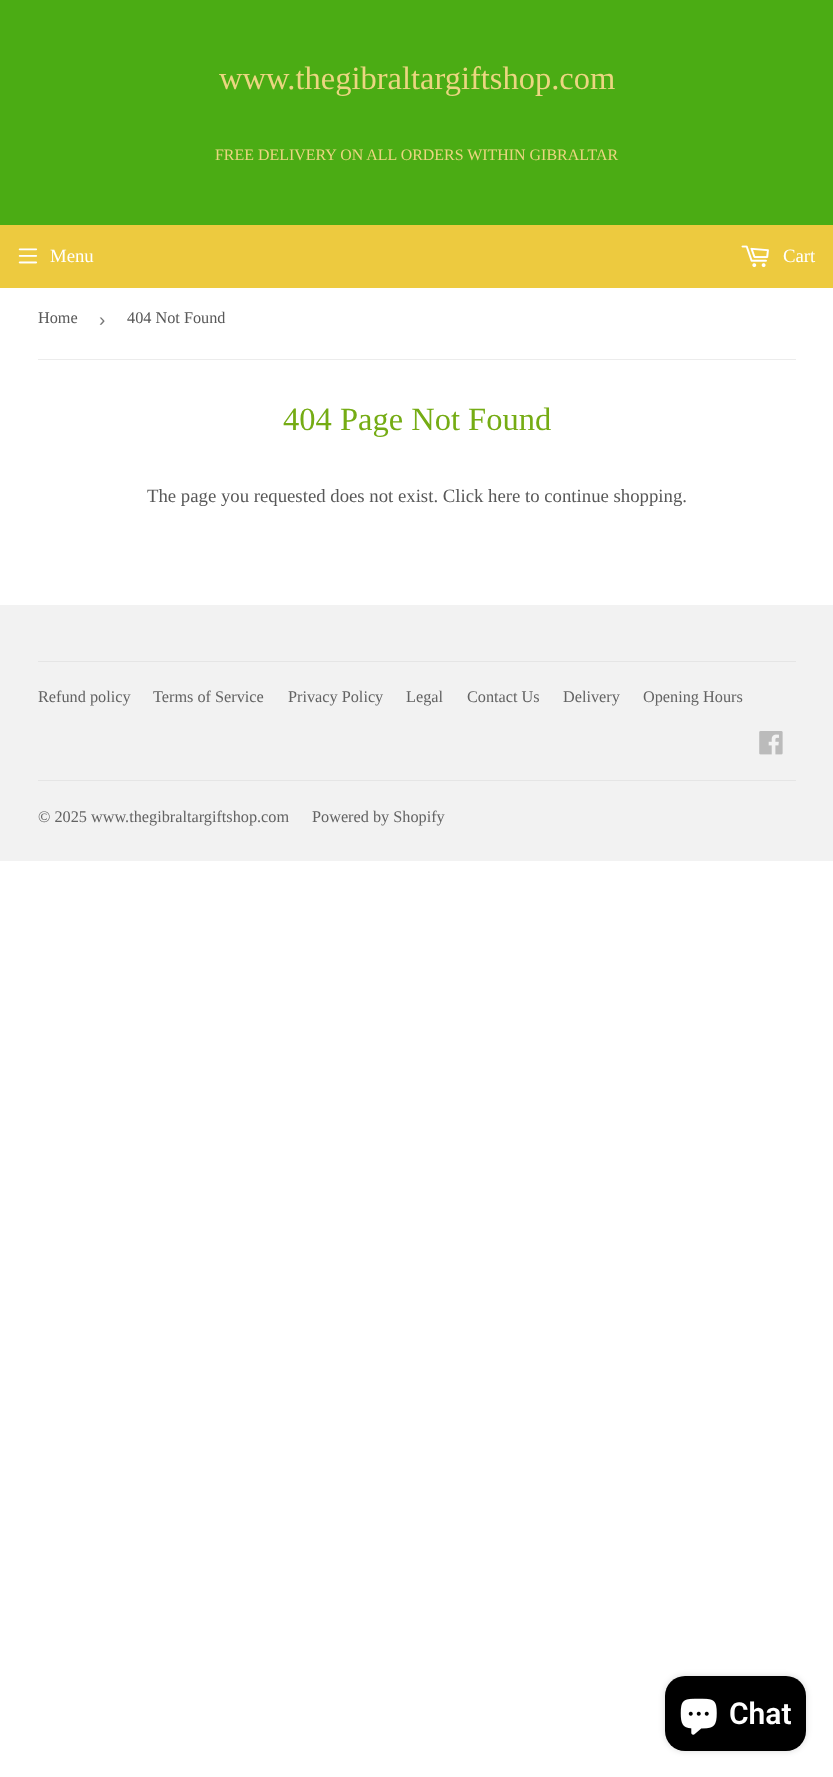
<!DOCTYPE html>
<meta charset="utf-8">
<style>body { margin: 0 } canvas { display: block }</style>
<canvas id="canvas" width="833" height="1777"></canvas>
<script type="module">
  const canvas = document.getElementById("canvas");
  const ctx = canvas.getContext("2d");
  ctx.miterLimit = 4;
  ctx.fontKerning = "normal";
  async function loadImage(src) {
    const img = new Image();
    img.src = src;
    await img.decode();
    return img;
  }

  ctx.fillStyle = "#ffffff";
  ctx.fillRect(0, 0, 833, 1777);
  ctx.fillStyle = "#4bac14";
  ctx.fillRect(0, 0, 833, 225);
  ctx.font = "32.5px Liberation Serif";
  ctx.fillStyle = "#ebd681";
  ctx.fillText("www.thegibraltargiftshop.com", 219, 89);
  ctx.font = "15.95px Liberation Serif";
  ctx.fillText("FREE DELIVERY ON ALL ORDERS WITHIN GIBRALTAR", 215, 160);
  ctx.fillStyle = "#edca3f";
  ctx.fillRect(0, 225, 833, 63);
  ctx.drawImage(await loadImage("img1.png"), 18, 248, 20, 16);
  ctx.font = "18.75px Liberation Serif";
  ctx.fillStyle = "#ffffff";
  ctx.fillText("Menu", 50, 262);
  ctx.drawImage(await loadImage("img2.png"), 741, 245, 28, 23);
  ctx.fillText("Cart", 783, 262);
  ctx.fillStyle = "#ececec";
  ctx.fillRect(38, 359, 758, 1);
  ctx.font = "16.25px Liberation Serif";
  ctx.fillStyle = "#585858";
  ctx.fillText("Home", 38, 323);
  ctx.font = "18.75px Liberation Sans";
  ctx.fillStyle = "#767676";
  ctx.fillText("›", 99, 326);
  ctx.font = "16.25px Liberation Serif";
  ctx.fillStyle = "#585858";
  ctx.fillText("404 Not Found", 127, 323);
  ctx.font = "32.5px Liberation Serif";
  ctx.fillStyle = "#75ac14";
  ctx.fillText("404 Page Not Found", 283, 430);
  ctx.font = "18.75px Liberation Serif";
  ctx.fillStyle = "#585858";
  ctx.fillText("The page you requested does not exist. Click here to continue shopping.", 147, 502);
  ctx.fillStyle = "#f2f2f2";
  ctx.fillRect(0, 605, 833, 256);
  ctx.fillStyle = "#e5e5e5";
  ctx.fillRect(38, 661, 758, 1);
  ctx.font = "16.25px Liberation Serif";
  ctx.fillStyle = "#636363";
  ctx.fillText("Refund policy", 38, 702);
  ctx.fillText("Terms of Service", 153, 702);
  ctx.fillText("Privacy Policy", 288, 702);
  ctx.fillText("Legal", 406, 702);
  ctx.fillText("Contact Us", 467, 702);
  ctx.fillText("Delivery", 563, 702);
  ctx.fillText("Opening Hours", 643, 702);
  ctx.drawImage(await loadImage("img3.png"), 759, 731, 24, 24);
  ctx.fillStyle = "#e5e5e5";
  ctx.fillRect(38, 780, 758, 1);
  ctx.fillStyle = "#636363";
  ctx.fillText("© 2025 www.thegibraltargiftshop.com", 38, 822);
  ctx.fillText("Powered by Shopify", 312, 822);
  ctx.fillStyle = "rgba(0, 0, 0, 0.15)";
  ctx.filter = "blur(3px)";
  ctx.beginPath();
  ctx.roundRect(665, 1676, 141, 75, 20);
  ctx.fill();
  ctx.filter = "none";
  ctx.fillStyle = "#000000";
  ctx.beginPath();
  ctx.roundRect(665, 1676, 141, 75, 20);
  ctx.fill();
  ctx.drawImage(await loadImage("img4.png"), 680, 1698, 37, 37);
  ctx.font = "600 30px Roboto";
  ctx.fillStyle = "#ffffff";
  ctx.fillText("Chat", 729, 1724);
</script>
